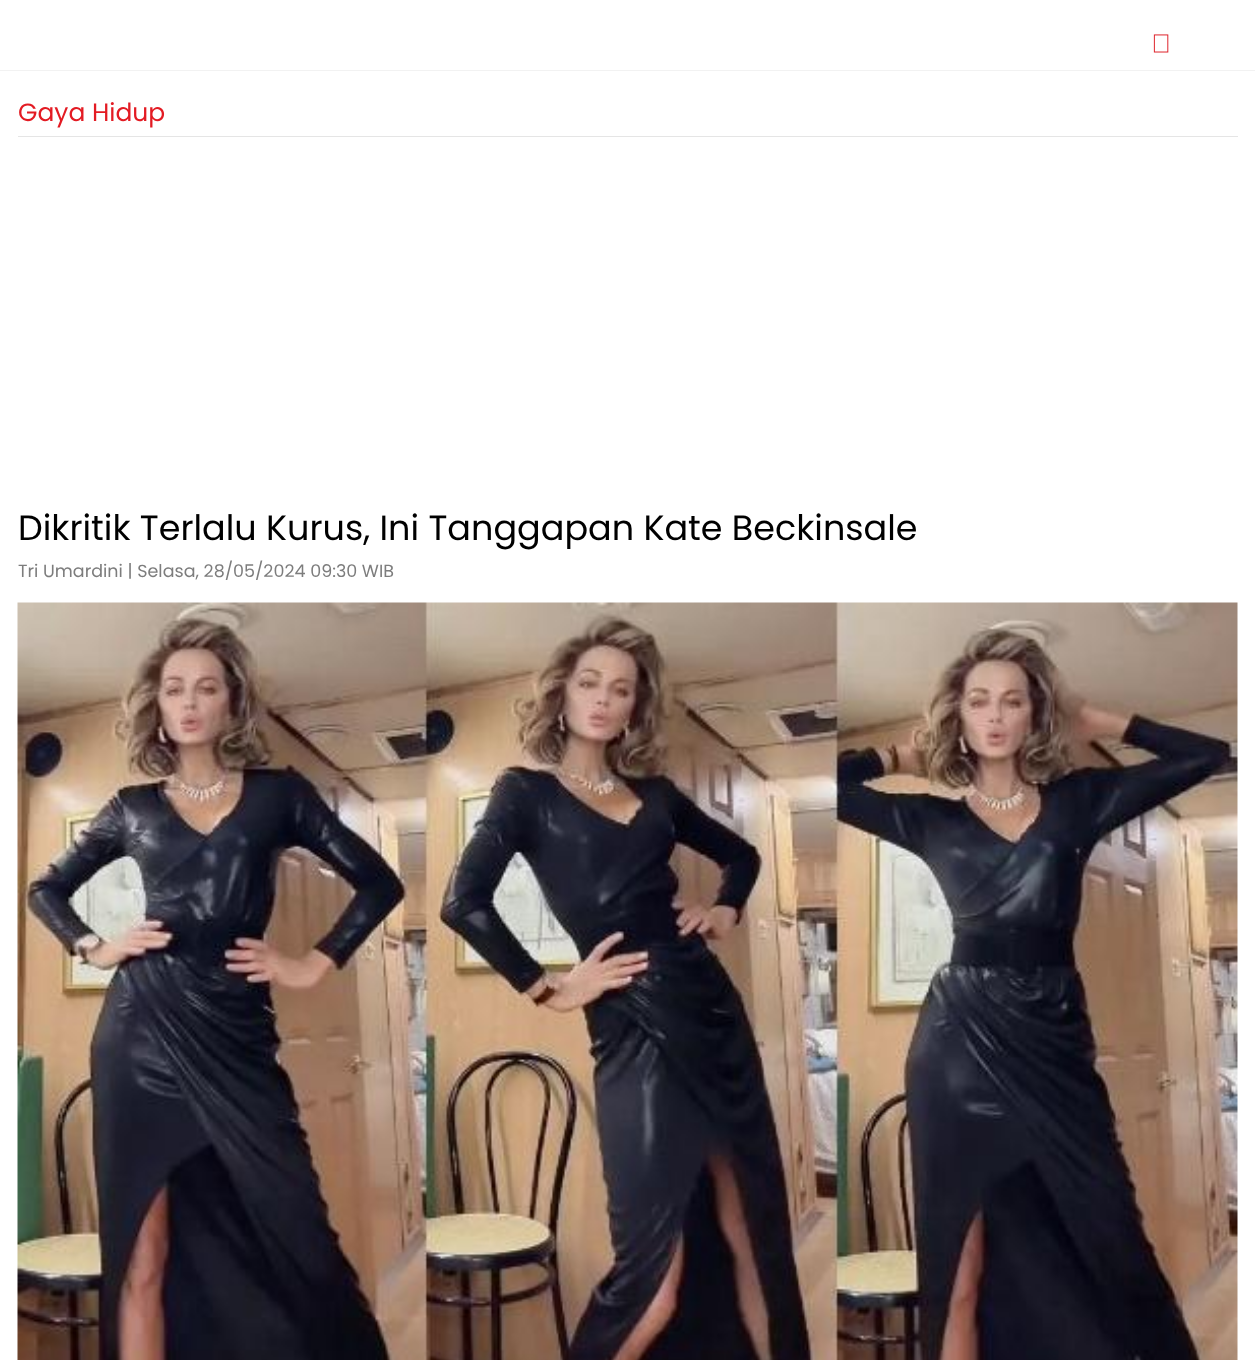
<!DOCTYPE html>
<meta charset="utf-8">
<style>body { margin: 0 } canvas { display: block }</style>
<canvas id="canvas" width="1255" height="1360"></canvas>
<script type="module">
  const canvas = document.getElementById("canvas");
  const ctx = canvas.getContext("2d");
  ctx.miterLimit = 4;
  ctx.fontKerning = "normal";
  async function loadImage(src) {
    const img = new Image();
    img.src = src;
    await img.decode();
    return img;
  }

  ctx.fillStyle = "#f2f2f2";
  ctx.fillRect(0, 0, 1255, 1360);
  ctx.fillStyle = "#ffffff";
  ctx.fillRect(0, 0, 1255, 70);
  ctx.drawImage(await loadImage("img1.png"), 1153, 34, 16, 19);
  ctx.fillRect(0, 71, 1255, 1289);
  ctx.fillStyle = "#e5e5e5";
  ctx.fillRect(18, 136, 1220, 1);
  ctx.font = "25px Poppins";
  ctx.fillStyle = "#e31b23";
  ctx.fillText("Gaya Hidup", 18, 121);
  ctx.font = "35px Poppins";
  ctx.fillStyle = "#000000";
  ctx.fillText("Dikritik Terlalu Kurus, Ini Tanggapan Kate Beckinsale", 18, 540);
  ctx.font = "17.5px Poppins";
  ctx.fillStyle = "#7d7d7d";
  ctx.fillText("Tri Umardini | Selasa, 28/05/2024 09:30 WIB", 18, 577);
  ctx.drawImage(await loadImage("img2.png"), 17, 602, 1221, 758);
</script>
